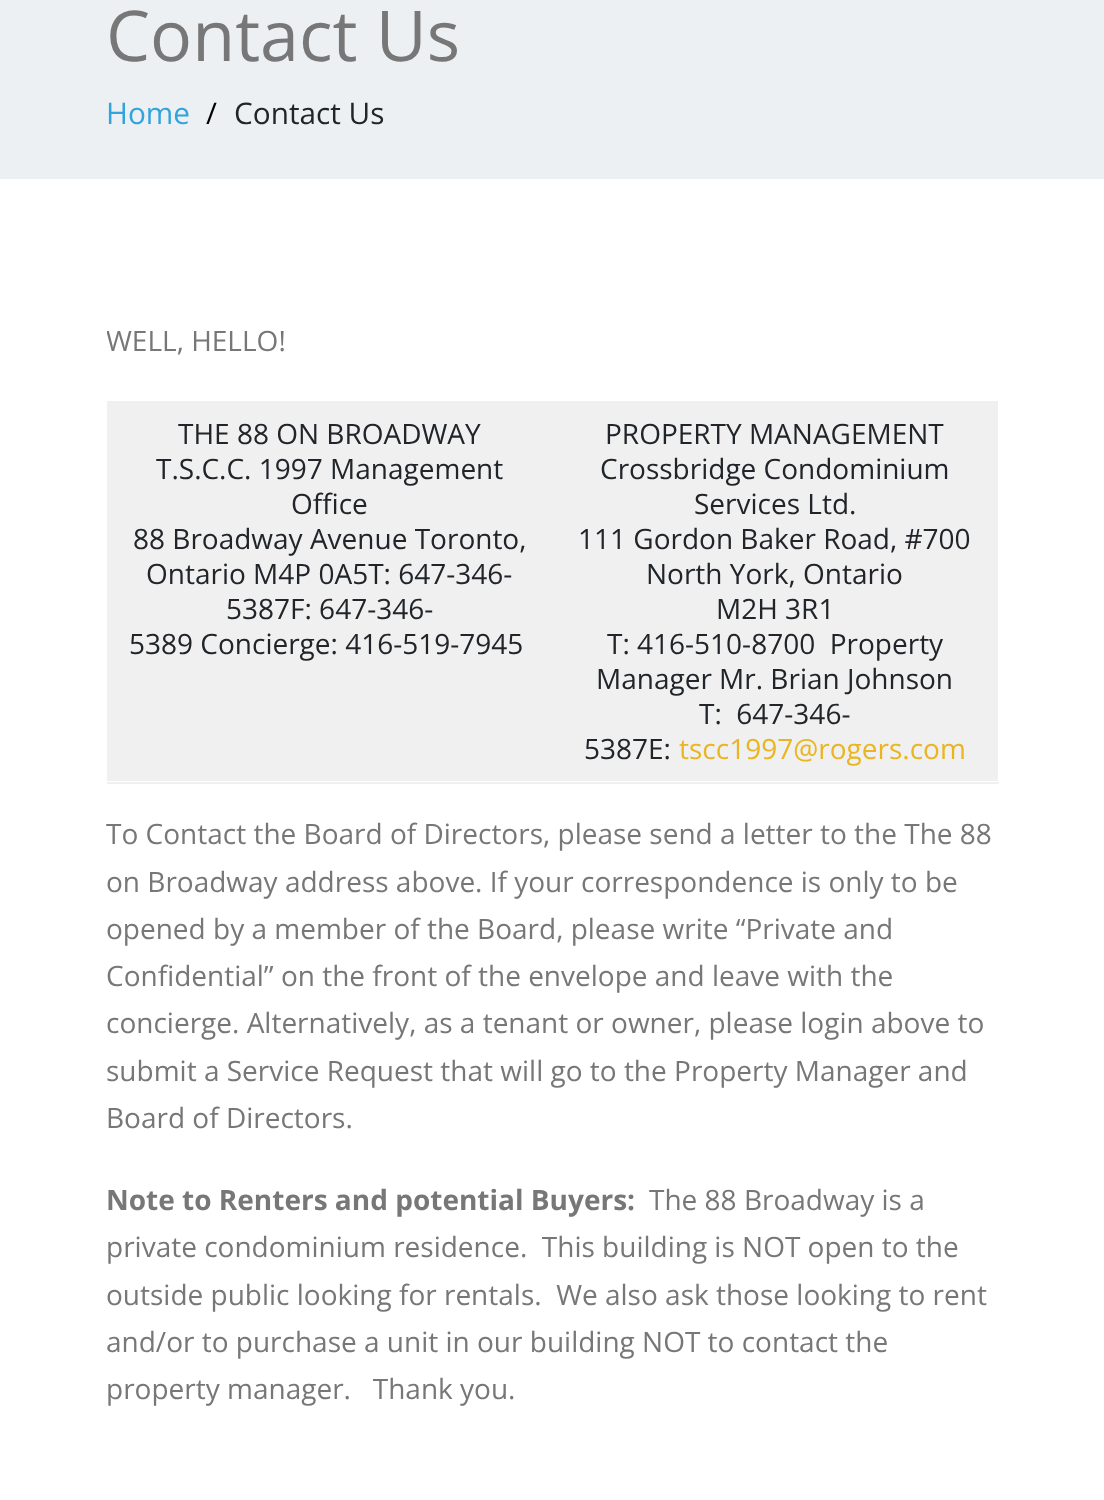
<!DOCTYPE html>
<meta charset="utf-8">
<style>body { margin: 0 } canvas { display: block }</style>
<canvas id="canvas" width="1104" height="1500"></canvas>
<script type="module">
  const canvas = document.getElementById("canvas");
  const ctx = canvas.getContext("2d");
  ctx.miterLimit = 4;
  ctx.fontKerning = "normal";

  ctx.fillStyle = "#ffffff";
  ctx.fillRect(0, 0, 1104, 1500);
  ctx.fillStyle = "#edf0f2";
  ctx.fillRect(0, 0, 1104, 179);
  ctx.font = "70px Open Sans";
  ctx.fillStyle = "#777777";
  ctx.fillText("Contact Us", 106, 61);
  ctx.font = "29.75px Open Sans";
  ctx.fillStyle = "#31a3dd";
  ctx.fillText("Home", 106, 124);
  ctx.fillStyle = "#000000";
  ctx.fillText("/", 206, 124);
  ctx.fillStyle = "#212529";
  ctx.fillText("Contact Us", 234, 124);
  ctx.save();
  ctx.beginPath();
  ctx.rect(107, 319, 892, 1148);
  ctx.clip();
  ctx.font = "28px Open Sans";
  ctx.fillStyle = "#777777";
  ctx.fillText("WELL, HELLO!", 106, 351);
  ctx.restore();
  ctx.fillStyle = "#f0f0f0";
  ctx.fillRect(107, 782, 892, 2);
  ctx.fillRect(107, 401, 891, 380);
  ctx.font = "28px Open Sans";
  ctx.fillStyle = "#212529";
  ctx.fillText("THE 88 ON BROADWAY", 178, 444);
  ctx.fillText("T.S.C.C. 1997 Management", 156, 479);
  ctx.fillText("Office", 291, 514);
  ctx.fillText("88 Broadway Avenue Toronto,", 133, 549);
  ctx.fillText("Ontario M4P 0A5T: 647-346-", 146, 584);
  ctx.fillText("5387F: 647-346-", 226, 619);
  ctx.fillText("5389 Concierge: 416-519-7945", 129, 654);
  ctx.fillText("PROPERTY MANAGEMENT", 605, 444);
  ctx.fillText("Crossbridge Condominium", 600, 479);
  ctx.fillText("Services Ltd.", 694, 514);
  ctx.fillText("111 Gordon Baker Road, #700", 578, 549);
  ctx.fillText("North York, Ontario", 646, 584);
  ctx.fillText("M2H 3R1", 716, 619);
  ctx.fillText("T: 416-510-8700  Property", 607, 654);
  ctx.fillText("Manager Mr. Brian Johnson", 596, 689);
  ctx.fillText("T:  647-346-", 699, 724);
  ctx.fillText("5387E:", 584, 759);
  ctx.fillStyle = "#eab521";
  ctx.fillText("tscc1997@rogers.com", 679, 759);
  ctx.fillStyle = "#777777";
  ctx.fillText("To Contact the Board of Directors, please send a letter to the The 88", 106, 844);
  ctx.fillText("on Broadway address above. If your correspondence is only to be", 106, 892);
  ctx.fillText("opened by a member of the Board, please write “Private and", 106, 939);
  ctx.fillText("Confidential” on the front of the envelope and leave with the", 106, 986);
  ctx.fillText("concierge. Alternatively, as a tenant or owner, please login above to", 106, 1033);
  ctx.fillText("submit a Service Request that will go to the Property Manager and", 106, 1081);
  ctx.fillText("Board of Directors.", 106, 1128);
  ctx.font = "bold 28px Open Sans";
  ctx.fillText("Note to Renters and potential Buyers:", 106, 1210);
  ctx.font = "28px Open Sans";
  ctx.fillText("The 88 Broadway is a", 649, 1210);
  ctx.fillText("private condominium residence.  This building is NOT open to the", 106, 1257);
  ctx.fillText("outside public looking for rentals.  We also ask those looking to rent", 106, 1305);
  ctx.fillText("and/or to purchase a unit in our building NOT to contact the", 106, 1352);
  ctx.fillText("property manager.   Thank you.", 106, 1399);
</script>
